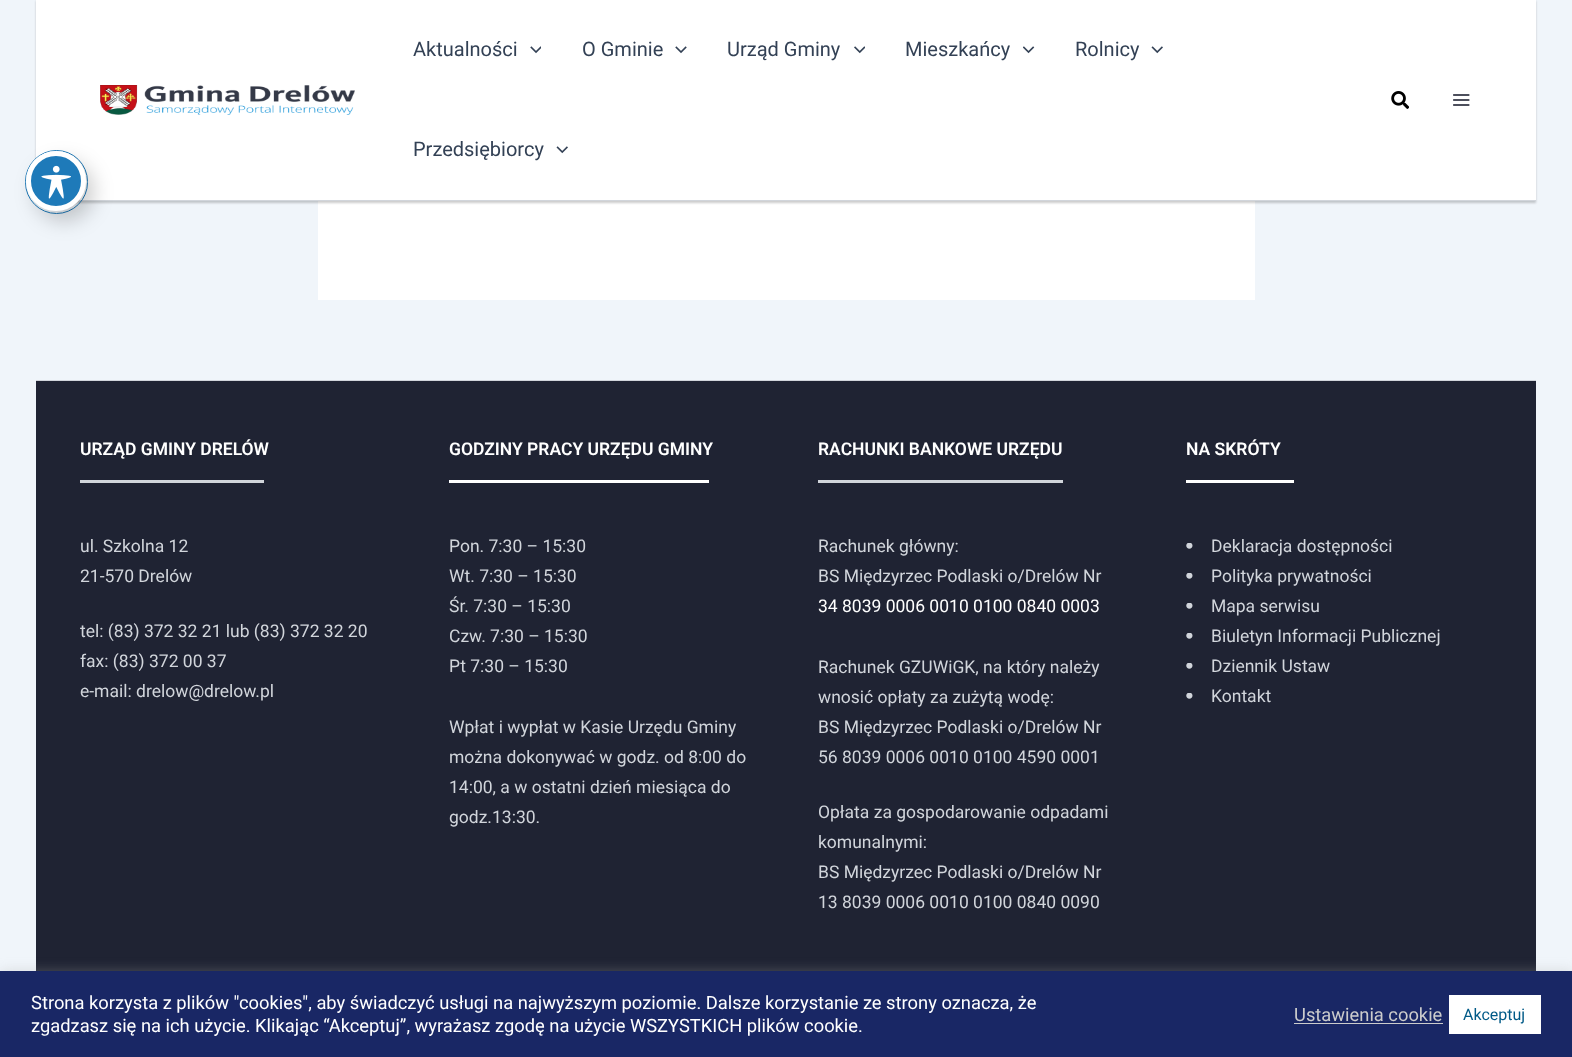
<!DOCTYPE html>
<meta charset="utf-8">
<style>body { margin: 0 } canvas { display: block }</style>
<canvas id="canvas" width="1572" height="1057"></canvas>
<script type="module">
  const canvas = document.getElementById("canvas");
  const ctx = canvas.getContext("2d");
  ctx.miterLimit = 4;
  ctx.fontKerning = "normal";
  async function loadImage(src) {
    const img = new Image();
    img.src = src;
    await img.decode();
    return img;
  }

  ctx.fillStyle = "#f0f5fa";
  ctx.fillRect(0, 0, 1572, 1057);
  ctx.fillStyle = "#ffffff";
  ctx.fillRect(318, 201, 937, 99);
  ctx.fillStyle = "rgba(0, 0, 0, 0.2)";
  ctx.filter = "blur(1px)";
  ctx.beginPath();
  ctx.rect(36, 1, 1500, 202);
  ctx.fill();
  ctx.filter = "none";
  ctx.fillStyle = "#ffffff";
  ctx.fillRect(36, 0, 1500, 200);
  ctx.fillStyle = "#d1d5db";
  ctx.fillRect(78, 200, 1458, 1);
  ctx.beginPath();
  ctx.roundRect(25.5, 150.5, 62, 63, 31);
  ctx.strokeStyle = "#1e7ab9";
  ctx.stroke();
  ctx.fillStyle = "rgba(0, 0, 0, 0.2)";
  ctx.filter = "blur(10px)";
  ctx.beginPath();
  ctx.roundRect(34, 161, 60, 60, 30);
  ctx.fill();
  ctx.filter = "none";
  ctx.fillStyle = "#1e7ab9";
  ctx.beginPath();
  ctx.arc(56, 181, 27.5, 0, Math.PI * 2);
  ctx.fill();
  ctx.strokeStyle = "#ffffff";
  ctx.lineWidth = 5;
  ctx.stroke();
  ctx.drawImage(await loadImage("img1.png"), 41, 165, 30, 34);
  ctx.drawImage(await loadImage("img2.png"), 100, 85, 255, 30);
  ctx.font = "20px Roboto";
  ctx.fillStyle = "#334155";
  ctx.fillText("Aktualności", 413, 56);
  ctx.drawImage(await loadImage("img3.png"), 530, 46, 11, 8);
  ctx.fillText("O Gminie", 582, 56);
  ctx.drawImage(await loadImage("img4.png"), 675, 46, 12, 8);
  ctx.fillText("Urząd Gminy", 727, 56);
  ctx.drawImage(await loadImage("img5.png"), 854, 46, 11, 8);
  ctx.fillText("Mieszkańcy", 905, 56);
  ctx.drawImage(await loadImage("img6.png"), 1023, 46, 12, 8);
  ctx.fillText("Rolnicy", 1075, 56);
  ctx.drawImage(await loadImage("img7.png"), 1151, 46, 12, 8);
  ctx.fillText("Przedsiębiorcy", 413, 156);
  ctx.drawImage(await loadImage("img7.png"), 556, 146, 12, 8);
  ctx.drawImage(await loadImage("img8.png"), 1391, 91, 18, 18);
  ctx.drawImage(await loadImage("img9.png"), 1453, 94, 17, 12);
  ctx.fillStyle = "#1f2333";
  ctx.fillRect(36, 381, 1500, 590);
  ctx.fillStyle = "#d1d5db";
  ctx.fillRect(36, 380, 1500, 1);
  ctx.font = "600 17.5px Roboto";
  ctx.fillStyle = "#ffffff";
  ctx.fillText("URZĄD GMINY DRELÓW", 80, 455);
  ctx.fillStyle = "#d1d5db";
  ctx.fillRect(80, 480, 184, 3);
  ctx.font = "17.5px Roboto";
  ctx.fillText("ul. Szkolna 12", 80, 552);
  ctx.fillText("21-570 Drelów", 80, 582);
  ctx.fillText("tel: (83) 372 32 21 lub (83) 372 32 20", 80, 637);
  ctx.fillText("fax: (83) 372 00 37", 80, 667);
  ctx.fillText("e-mail: drelow@drelow.pl", 80, 697);
  ctx.font = "600 17.5px Roboto";
  ctx.fillStyle = "#ffffff";
  ctx.fillText("GODZINY PRACY URZĘDU GMINY", 449, 455);
  ctx.fillRect(449, 480, 260, 3);
  ctx.font = "17.5px Roboto";
  ctx.fillStyle = "#d1d5db";
  ctx.fillText("Pon. 7:30 – 15:30", 449, 552);
  ctx.fillText("Wt. 7:30 – 15:30", 449, 582);
  ctx.fillText("Śr. 7:30 – 15:30", 449, 612);
  ctx.fillText("Czw. 7:30 – 15:30", 449, 642);
  ctx.fillText("Pt 7:30 – 15:30", 449, 672);
  ctx.fillText("Wpłat i wypłat w Kasie Urzędu Gminy", 449, 733);
  ctx.fillText("można dokonywać w godz. od 8:00 do", 449, 763);
  ctx.fillText("14:00, a w ostatni dzień miesiąca do", 449, 793);
  ctx.fillText("godz.13:30.", 449, 823);
  ctx.font = "600 17.5px Roboto";
  ctx.fillStyle = "#ffffff";
  ctx.fillText("RACHUNKI BANKOWE URZĘDU", 818, 455);
  ctx.fillStyle = "#d1d5db";
  ctx.fillRect(818, 480, 245, 3);
  ctx.font = "17.5px Roboto";
  ctx.fillText("Rachunek główny:", 818, 552);
  ctx.fillText("BS Międzyrzec Podlaski o/Drelów Nr", 818, 582);
  ctx.fillStyle = "#ffffff";
  ctx.fillText("34 8039 0006 0010 0100 0840 0003", 818, 612);
  ctx.fillStyle = "#d1d5db";
  ctx.fillText("Rachunek GZUWiGK, na który należy", 818, 673);
  ctx.fillText("wnosić opłaty za zużytą wodę:", 818, 703);
  ctx.fillText("BS Międzyrzec Podlaski o/Drelów Nr", 818, 733);
  ctx.fillText("56 8039 0006 0010 0100 4590 0001", 818, 763);
  ctx.fillText("Opłata za gospodarowanie odpadami", 818, 818);
  ctx.fillText("komunalnymi:", 818, 848);
  ctx.fillText("BS Międzyrzec Podlaski o/Drelów Nr", 818, 878);
  ctx.fillText("13 8039 0006 0010 0100 0840 0090", 818, 908);
  ctx.font = "600 17.5px Roboto";
  ctx.fillStyle = "#ffffff";
  ctx.fillText("NA SKRÓTY", 1186, 455);
  ctx.fillRect(1186, 480, 108, 3);
  ctx.drawImage(await loadImage("img10.png"), 1186, 543, 7, 6);
  ctx.font = "17.5px Roboto";
  ctx.fillStyle = "#d1d5db";
  ctx.fillText("Deklaracja dostępności", 1211, 552);
  ctx.drawImage(await loadImage("img10.png"), 1186, 573, 7, 6);
  ctx.fillText("Polityka prywatności", 1211, 582);
  ctx.drawImage(await loadImage("img10.png"), 1186, 603, 7, 6);
  ctx.fillText("Mapa serwisu", 1211, 612);
  ctx.drawImage(await loadImage("img10.png"), 1186, 633, 7, 6);
  ctx.fillText("Biuletyn Informacji Publicznej", 1211, 642);
  ctx.drawImage(await loadImage("img10.png"), 1186, 663, 7, 6);
  ctx.fillText("Dziennik Ustaw", 1211, 672);
  ctx.drawImage(await loadImage("img10.png"), 1186, 693, 7, 6);
  ctx.fillText("Kontakt", 1211, 702);
  ctx.fillStyle = "rgba(172, 171, 171, 0.3)";
  ctx.filter = "blur(6px)";
  ctx.beginPath();
  ctx.rect(0, 970, 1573, 86);
  ctx.fill();
  ctx.filter = "none";
  ctx.fillStyle = "#192765";
  ctx.fillRect(0, 971, 1572, 86);
  ctx.font = "18.33px Roboto";
  ctx.fillStyle = "#ffffff";
  ctx.fillText("Strona korzysta z plików \"cookies\", aby świadczyć usługi na najwyższym poziomie. Dalsze korzystanie ze strony oznacza, że", 31, 1009);
  ctx.fillText("zgadzasz się na ich użycie. Klikając “Akceptuj”, wyrażasz zgodę na użycie WSZYSTKICH plików cookie.", 31, 1032);
  ctx.fillStyle = "#cccccc";
  ctx.fillText("Ustawienia cookie", 1294, 1021);
  ctx.fillRect(1294, 1023, 149, 1);
  ctx.fillStyle = "#ffffff";
  ctx.fillRect(1449, 995, 92, 39);
  ctx.font = "16px Roboto";
  ctx.fillStyle = "#005a87";
  ctx.fillText("Akceptuj", 1463, 1020);
</script>
